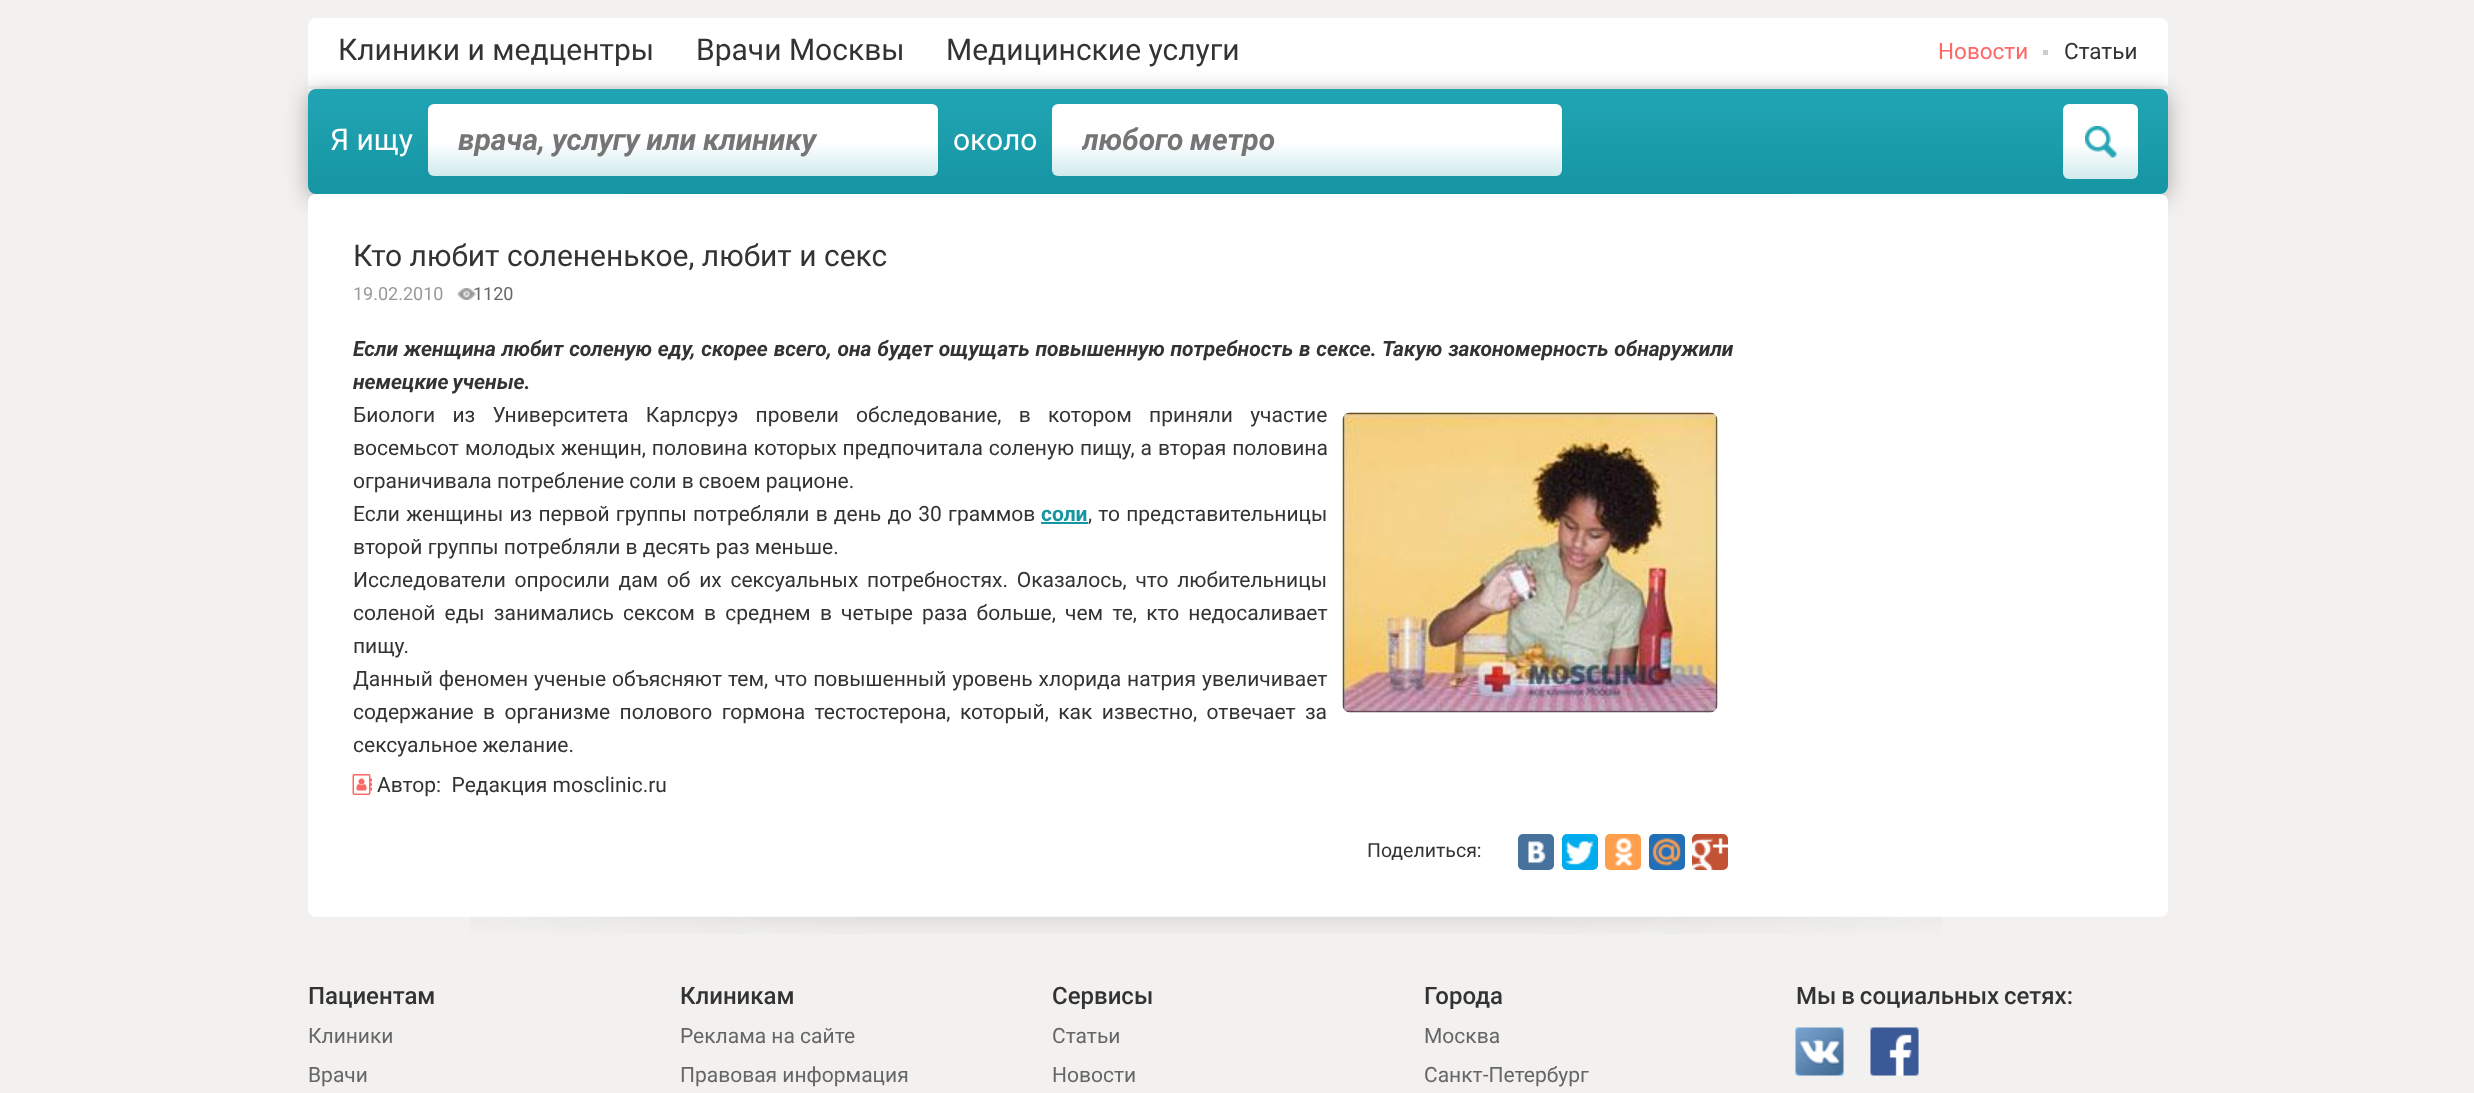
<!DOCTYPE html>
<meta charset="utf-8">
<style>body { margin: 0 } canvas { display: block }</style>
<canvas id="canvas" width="2474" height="1093"></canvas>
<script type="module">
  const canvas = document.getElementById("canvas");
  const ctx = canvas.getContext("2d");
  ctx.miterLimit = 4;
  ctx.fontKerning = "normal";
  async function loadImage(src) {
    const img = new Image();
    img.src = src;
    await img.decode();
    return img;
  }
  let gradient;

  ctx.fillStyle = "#f2f1ef";
  ctx.fillRect(0, 0, 2474, 1093);
  ctx.fillStyle = "#ffffff";
  ctx.beginPath();
  ctx.roundRect(308, 18, 1860, 176, 8);
  ctx.fill();
  ctx.fillStyle = "#f2f1ef";
  ctx.fillRect(308, 86, 1860, 3);
  ctx.fillStyle = "#a8a8a8";
  ctx.filter = "blur(11px)";
  ctx.beginPath();
  ctx.roundRect(308, 93, 1860, 105, 8);
  ctx.fill();
  ctx.filter = "none";
  ctx.font = "30px Roboto";
  ctx.fillStyle = "#333333";
  ctx.fillText("Клиники и медцентры", 338, 60);
  ctx.fillText("Врачи Москвы", 696, 60);
  ctx.fillText("Медицинские услуги", 946, 60);
  ctx.font = "22.5px Roboto";
  ctx.fillStyle = "#ff6666";
  ctx.fillText("Новости", 1938, 59);
  ctx.fillStyle = "#cccccc";
  ctx.fillRect(2043, 50, 5, 5);
  ctx.fillStyle = "#333333";
  ctx.fillText("Статьи", 2064, 59);
  gradient = ctx.createLinearGradient(1238, 88, 1238, 194);
  gradient.addColorStop(0, "#21a5b4");
  gradient.addColorStop(1, "#1695a3");
  ctx.fillStyle = gradient;
  ctx.beginPath();
  ctx.roundRect(308, 89, 1860, 105, 8);
  ctx.fill();
  ctx.font = "30px Roboto";
  ctx.fillStyle = "#ffffff";
  ctx.fillText("Я ищу", 330, 150);
  gradient = ctx.createLinearGradient(683, 103, 683, 176);
  gradient.addColorStop(0, "#ffffff");
  gradient.addColorStop(0.53, "#ffffff");
  gradient.addColorStop(1, "#d1eaed");
  ctx.fillStyle = gradient;
  ctx.beginPath();
  ctx.roundRect(428, 104, 510, 72, 6);
  ctx.fill();
  ctx.wordSpacing = "-0.5px";
  ctx.font = "italic bold 30px Roboto";
  ctx.fillStyle = "#757575";
  ctx.fillText("врача, услугу или клинику", 458, 150);
  ctx.wordSpacing = "0px";
  ctx.font = "30px Roboto";
  ctx.fillStyle = "#ffffff";
  ctx.fillText("около", 953, 150);
  gradient = ctx.createLinearGradient(1307, 103, 1307, 176);
  gradient.addColorStop(0, "#ffffff");
  gradient.addColorStop(0.53, "#ffffff");
  gradient.addColorStop(1, "#d1eaed");
  ctx.fillStyle = gradient;
  ctx.beginPath();
  ctx.roundRect(1052, 104, 510, 72, 6);
  ctx.fill();
  ctx.save();
  ctx.beginPath();
  ctx.rect(1082, 122, 450, 36);
  ctx.clip();
  ctx.wordSpacing = "-1px";
  ctx.font = "italic bold 30px Roboto";
  ctx.fillStyle = "#757575";
  ctx.fillText("любого метро", 1082, 150);
  ctx.restore();
  gradient = ctx.createLinearGradient(2100, 104, 2100, 179);
  gradient.addColorStop(0, "#ffffff");
  gradient.addColorStop(0.53, "#ffffff");
  gradient.addColorStop(1, "#d1eaed");
  ctx.fillStyle = gradient;
  ctx.beginPath();
  ctx.roundRect(2063, 104, 75, 75, 6);
  ctx.fill();
  ctx.drawImage(await loadImage("img1.png"), 2085, 126, 32, 32);
  ctx.drawImage(await loadImage("img2.png"), 625, 193, 1162, 1);
  ctx.fillStyle = "#ffffff";
  ctx.beginPath();
  ctx.roundRect(308, 194, 1860, 723, 8);
  ctx.fill();
  ctx.fillStyle = "#333333";
  ctx.fillText("Кто любит солененькое, любит и секс", 353, 266);
  ctx.font = "18px Roboto";
  ctx.fillStyle = "#999999";
  ctx.fillText("19.02.2010", 353, 300);
  ctx.drawImage(await loadImage("img3.png"), 457, 288, 19, 12);
  ctx.fillStyle = "#666666";
  ctx.fillText("1120", 473, 300);
  ctx.wordSpacing = "0.7px";
  ctx.font = "italic bold 21px Roboto";
  ctx.fillStyle = "#333333";
  ctx.fillText("Если женщина любит соленую еду, скорее всего, она будет ощущать повышенную потребность в сексе. Такую закономерность обнаружили", 353, 356);
  ctx.wordSpacing = "-1px";
  ctx.fillText("немецкие ученые.", 353, 389);
  ctx.wordSpacing = "12px";
  ctx.font = "21px Roboto";
  ctx.fillText("Биологи из Университета Карлсруэ провели обследование, в котором приняли участие", 353, 422);
  ctx.drawImage(await loadImage("img4.png"), 1342, 412, 376, 301);
  ctx.wordSpacing = "0.75px";
  ctx.fillText("восемьсот молодых женщин, половина которых предпочитала соленую пищу, а вторая половина", 353, 455);
  ctx.wordSpacing = "0px";
  ctx.fillText("ограничивала потребление соли в своем рационе.", 353, 488);
  ctx.wordSpacing = "1px";
  ctx.fillText("Если женщины из первой группы потребляли в день до 30 граммов", 353, 521);
  ctx.wordSpacing = "0px";
  ctx.font = "bold 21px Roboto";
  ctx.fillStyle = "#1695a3";
  ctx.fillText("соли", 1041, 521);
  ctx.fillRect(1041, 522, 47, 2);
  ctx.wordSpacing = "1px";
  ctx.font = "21px Roboto";
  ctx.fillStyle = "#333333";
  ctx.fillText(", то представительницы", 1088, 521);
  ctx.wordSpacing = "0px";
  ctx.fillText("второй группы потребляли в десять раз меньше.", 353, 554);
  ctx.wordSpacing = "3.5px";
  ctx.fillText("Исследователи опросили дам об их сексуальных потребностях. Оказалось, что любительницы", 353, 587);
  ctx.wordSpacing = "4px";
  ctx.fillText("соленой еды занимались сексом в среднем в четыре раза больше, чем те, кто недосаливает", 353, 620);
  ctx.wordSpacing = "0px";
  ctx.fillText("пищу.", 353, 653);
  ctx.wordSpacing = "0.75px";
  ctx.fillText("Данный феномен ученые объясняют тем, что повышенный уровень хлорида натрия увеличивает", 353, 686);
  ctx.wordSpacing = "4.25px";
  ctx.fillText("содержание в организме полового гормона тестостерона, который, как известно, отвечает за", 353, 719);
  ctx.wordSpacing = "0px";
  ctx.fillText("сексуальное желание.", 353, 752);
  ctx.drawImage(await loadImage("img5.png"), 352, 774, 20, 21);
  ctx.fillText("Автор:  Редакция mosclinic.ru", 377, 792);
  ctx.font = "19.5px Roboto";
  ctx.fillText("Поделиться:", 1367, 857);
  ctx.fillStyle = "#48729e";
  ctx.beginPath();
  ctx.roundRect(1518, 834, 36, 36, 5);
  ctx.fill();
  ctx.drawImage(await loadImage("img6.png"), 1528, 841, 18, 22);
  ctx.fillStyle = "#00aced";
  ctx.beginPath();
  ctx.roundRect(1562, 834, 36, 36, 5);
  ctx.fill();
  ctx.drawImage(await loadImage("img7.png"), 1565, 841, 29, 24);
  ctx.fillStyle = "#ff9f4d";
  ctx.beginPath();
  ctx.roundRect(1605, 834, 36, 36, 5);
  ctx.fill();
  ctx.drawImage(await loadImage("img8.png"), 1615, 838, 18, 28);
  ctx.fillStyle = "#226eb7";
  ctx.beginPath();
  ctx.roundRect(1649, 834, 36, 36, 5);
  ctx.fill();
  ctx.drawImage(await loadImage("img9.png"), 1652, 838, 29, 28);
  ctx.fillStyle = "#c25234";
  ctx.beginPath();
  ctx.roundRect(1692, 834, 36, 36, 5);
  ctx.fill();
  ctx.drawImage(await loadImage("img10.png"), 1692, 838, 36, 32);
  ctx.drawImage(await loadImage("img11.png"), 470, 916, 1472, 18);
  ctx.font = "500 24px Roboto";
  ctx.fillStyle = "#333333";
  ctx.fillText("Пациентам", 308, 1004);
  ctx.font = "21px Roboto";
  ctx.fillStyle = "#666666";
  ctx.fillText("Клиники", 308, 1043);
  ctx.fillText("Врачи", 308, 1082);
  ctx.font = "500 24px Roboto";
  ctx.fillStyle = "#333333";
  ctx.fillText("Клиникам", 680, 1004);
  ctx.font = "21px Roboto";
  ctx.fillStyle = "#666666";
  ctx.fillText("Реклама на сайте", 680, 1043);
  ctx.fillText("Правовая информация", 680, 1082);
  ctx.font = "500 24px Roboto";
  ctx.fillStyle = "#333333";
  ctx.fillText("Сервисы", 1052, 1004);
  ctx.font = "21px Roboto";
  ctx.fillStyle = "#666666";
  ctx.fillText("Статьи", 1052, 1043);
  ctx.fillText("Новости", 1052, 1082);
  ctx.font = "500 24px Roboto";
  ctx.fillStyle = "#333333";
  ctx.fillText("Города", 1424, 1004);
  ctx.font = "21px Roboto";
  ctx.fillStyle = "#666666";
  ctx.fillText("Москва", 1424, 1043);
  ctx.fillText("Санкт-Петербург", 1424, 1082);
  ctx.wordSpacing = "-1px";
  ctx.font = "500 24px Roboto";
  ctx.fillStyle = "#333333";
  ctx.fillText("Мы в социальных сетях:", 1796, 1004);
  ctx.drawImage(await loadImage("img12.png"), 1795, 1027, 49, 49);
  ctx.drawImage(await loadImage("img13.png"), 1870, 1027, 49, 49);
</script>
